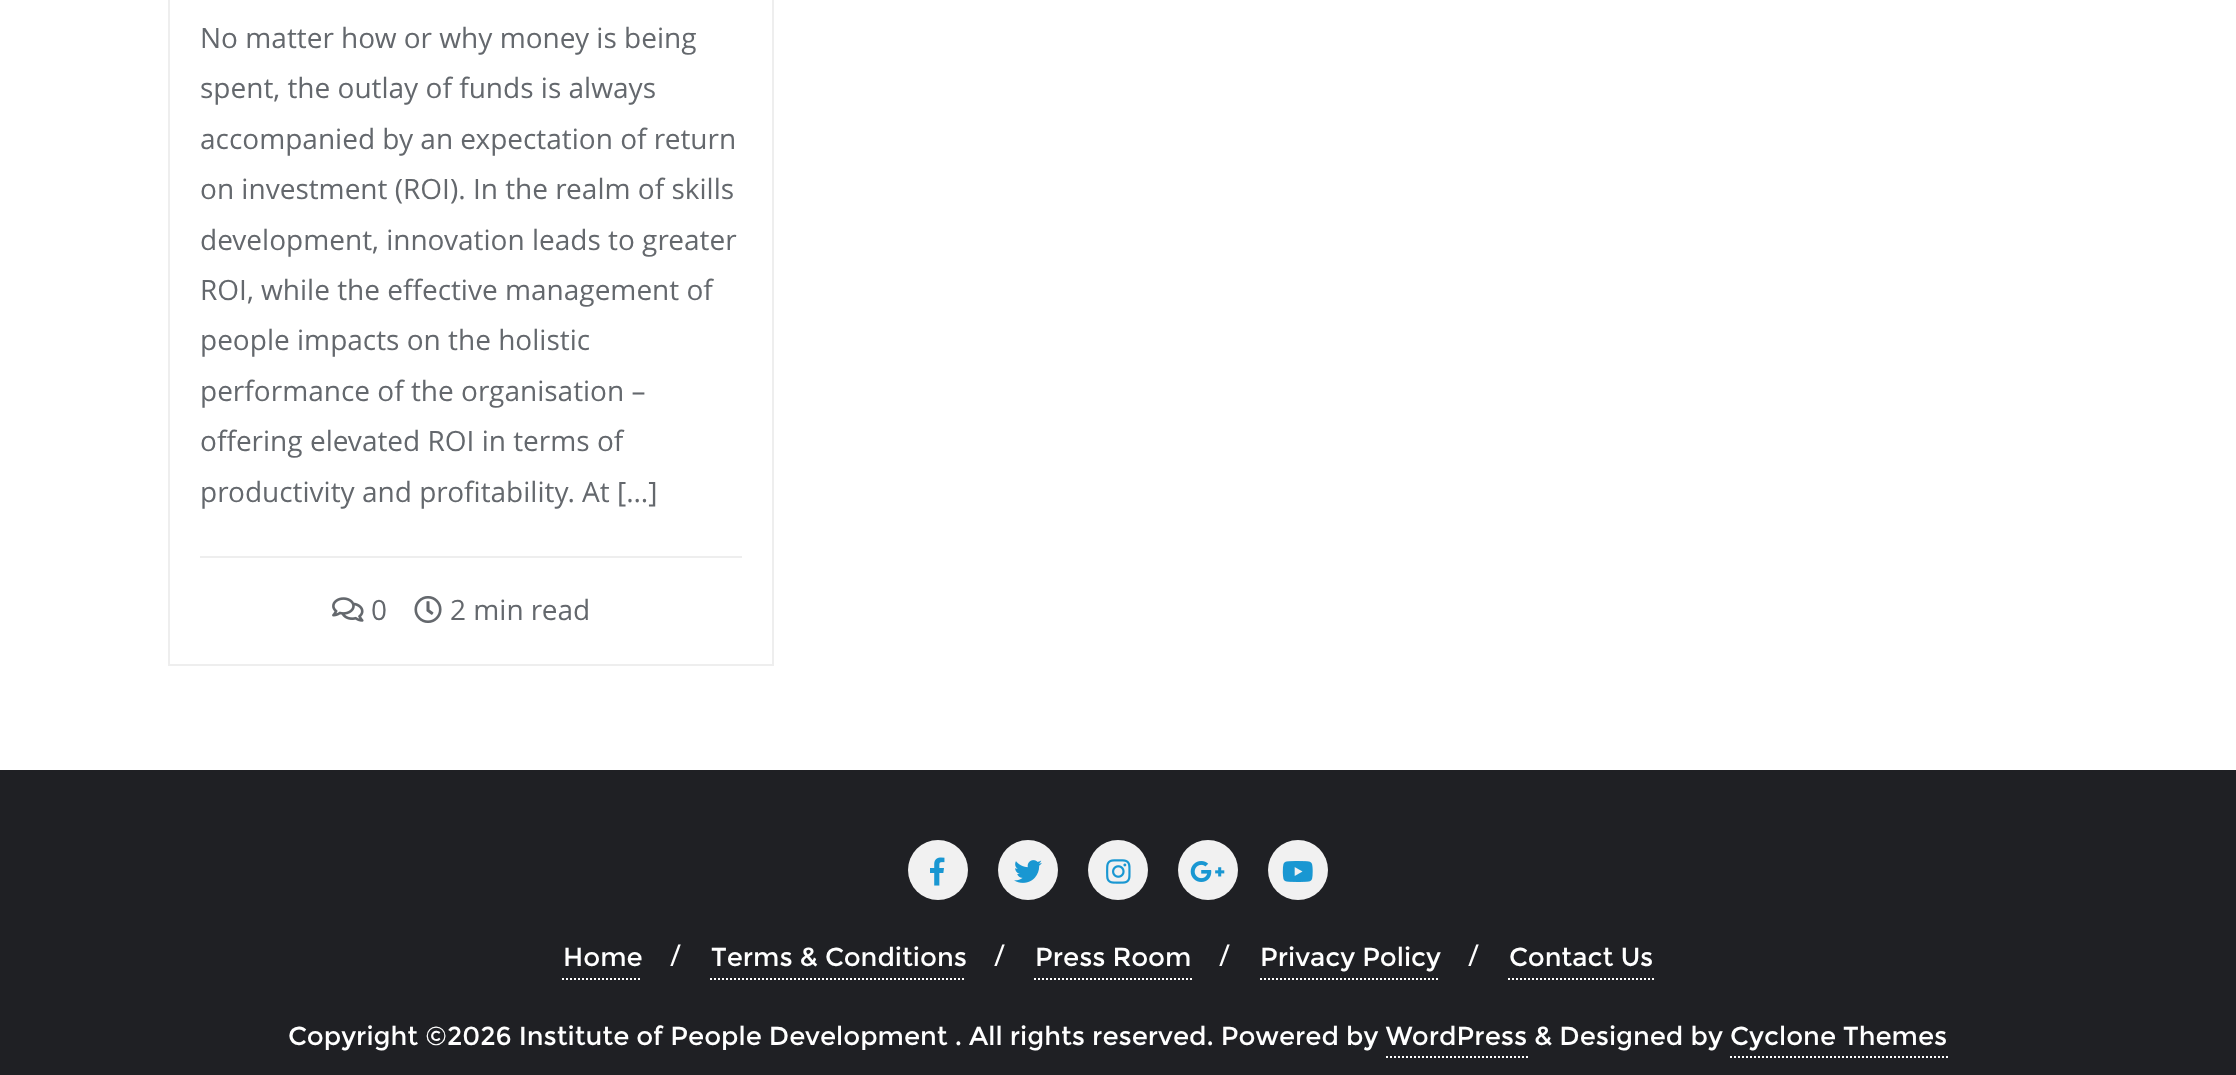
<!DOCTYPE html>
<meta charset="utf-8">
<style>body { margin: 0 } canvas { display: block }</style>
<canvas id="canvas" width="2236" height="1075"></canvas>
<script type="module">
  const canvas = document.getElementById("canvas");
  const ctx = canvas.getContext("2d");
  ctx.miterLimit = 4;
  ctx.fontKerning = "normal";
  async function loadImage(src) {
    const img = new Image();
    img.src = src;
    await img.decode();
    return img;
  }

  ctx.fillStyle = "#ffffff";
  ctx.fillRect(0, 0, 2236, 1075);
  ctx.strokeStyle = "#eeeeee";
  ctx.lineWidth = 2;
  ctx.strokeRect(169, -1, 604, 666);
  ctx.font = "28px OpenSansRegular";
  ctx.fillStyle = "#64686d";
  ctx.fillText("No matter how or why money is being", 200, 48);
  ctx.fillText("spent, the outlay of funds is always", 200, 98);
  ctx.fillText("accompanied by an expectation of return", 200, 149);
  ctx.fillText("on investment (ROI). In the realm of skills", 200, 199);
  ctx.fillText("development, innovation leads to greater", 200, 250);
  ctx.fillText("ROI, while the effective management of", 200, 300);
  ctx.fillText("people impacts on the holistic", 200, 350);
  ctx.fillText("performance of the organisation –", 200, 401);
  ctx.fillText("offering elevated ROI in terms of", 200, 451);
  ctx.fillText("productivity and profitability. At […]", 200, 502);
  ctx.fillStyle = "#eeeeee";
  ctx.fillRect(200, 556, 542, 2);
  ctx.drawImage(await loadImage("img1.png"), 332, 597, 32, 25);
  ctx.fillStyle = "#64686d";
  ctx.fillText("0", 371, 620);
  ctx.drawImage(await loadImage("img2.png"), 414, 596, 28, 27);
  ctx.fillText("2 min read", 450, 620);
  ctx.fillStyle = "#1f2024";
  ctx.fillRect(0, 770, 2236, 305);
  ctx.fillStyle = "#f1f1f1";
  ctx.beginPath();
  ctx.arc(938, 870, 30, 0, Math.PI * 2);
  ctx.fill();
  ctx.drawImage(await loadImage("img3.png"), 930, 857, 15, 29);
  ctx.beginPath();
  ctx.arc(1028, 870, 30, 0, Math.PI * 2);
  ctx.fill();
  ctx.drawImage(await loadImage("img4.png"), 1014, 860, 28, 23);
  ctx.beginPath();
  ctx.arc(1118, 870, 30, 0, Math.PI * 2);
  ctx.fill();
  ctx.drawImage(await loadImage("img5.png"), 1106, 859, 25, 25);
  ctx.beginPath();
  ctx.arc(1208, 870, 30, 0, Math.PI * 2);
  ctx.fill();
  ctx.drawImage(await loadImage("img6.png"), 1190, 861, 35, 21);
  ctx.beginPath();
  ctx.arc(1298, 870, 30, 0, Math.PI * 2);
  ctx.fill();
  ctx.drawImage(await loadImage("img7.png"), 1282, 861, 31, 21);
  ctx.beginPath();
  ctx.moveTo(562, 979);
  ctx.lineTo(642, 979);
  ctx.strokeStyle = "#ffffff";
  ctx.setLineDash([2, 2]);
  ctx.stroke();
  ctx.font = "26px Montserrat";
  ctx.fillStyle = "#ffffff";
  ctx.fillText("Home", 563, 966);
  ctx.font = "30px OpenSansRegular";
  ctx.fillText("/", 670, 966);
  ctx.beginPath();
  ctx.moveTo(710, 979);
  ctx.lineTo(966, 979);
  ctx.stroke();
  ctx.font = "26px Montserrat";
  ctx.fillText("Terms & Conditions", 711, 966);
  ctx.font = "30px OpenSansRegular";
  ctx.fillText("/", 994, 966);
  ctx.beginPath();
  ctx.moveTo(1034, 979);
  ctx.lineTo(1192, 979);
  ctx.stroke();
  ctx.font = "26px Montserrat";
  ctx.fillText("Press Room", 1035, 966);
  ctx.font = "30px OpenSansRegular";
  ctx.fillText("/", 1219, 966);
  ctx.beginPath();
  ctx.moveTo(1260, 979);
  ctx.lineTo(1440, 979);
  ctx.stroke();
  ctx.font = "26px Montserrat";
  ctx.fillText("Privacy Policy", 1260, 966);
  ctx.font = "30px OpenSansRegular";
  ctx.fillText("/", 1468, 966);
  ctx.beginPath();
  ctx.moveTo(1508, 979);
  ctx.lineTo(1654, 979);
  ctx.stroke();
  ctx.font = "26px Montserrat";
  ctx.fillText("Contact Us", 1509, 966);
  ctx.fillText("Copyright ©2026 Institute of People Development . All rights reserved. Powered by WordPress & Designed by Cyclone Themes", 288, 1045);
  ctx.beginPath();
  ctx.moveTo(1386, 1057);
  ctx.lineTo(1528, 1057);
  ctx.stroke();
  ctx.beginPath();
  ctx.moveTo(1730, 1057);
  ctx.lineTo(1948, 1057);
  ctx.stroke();
</script>
